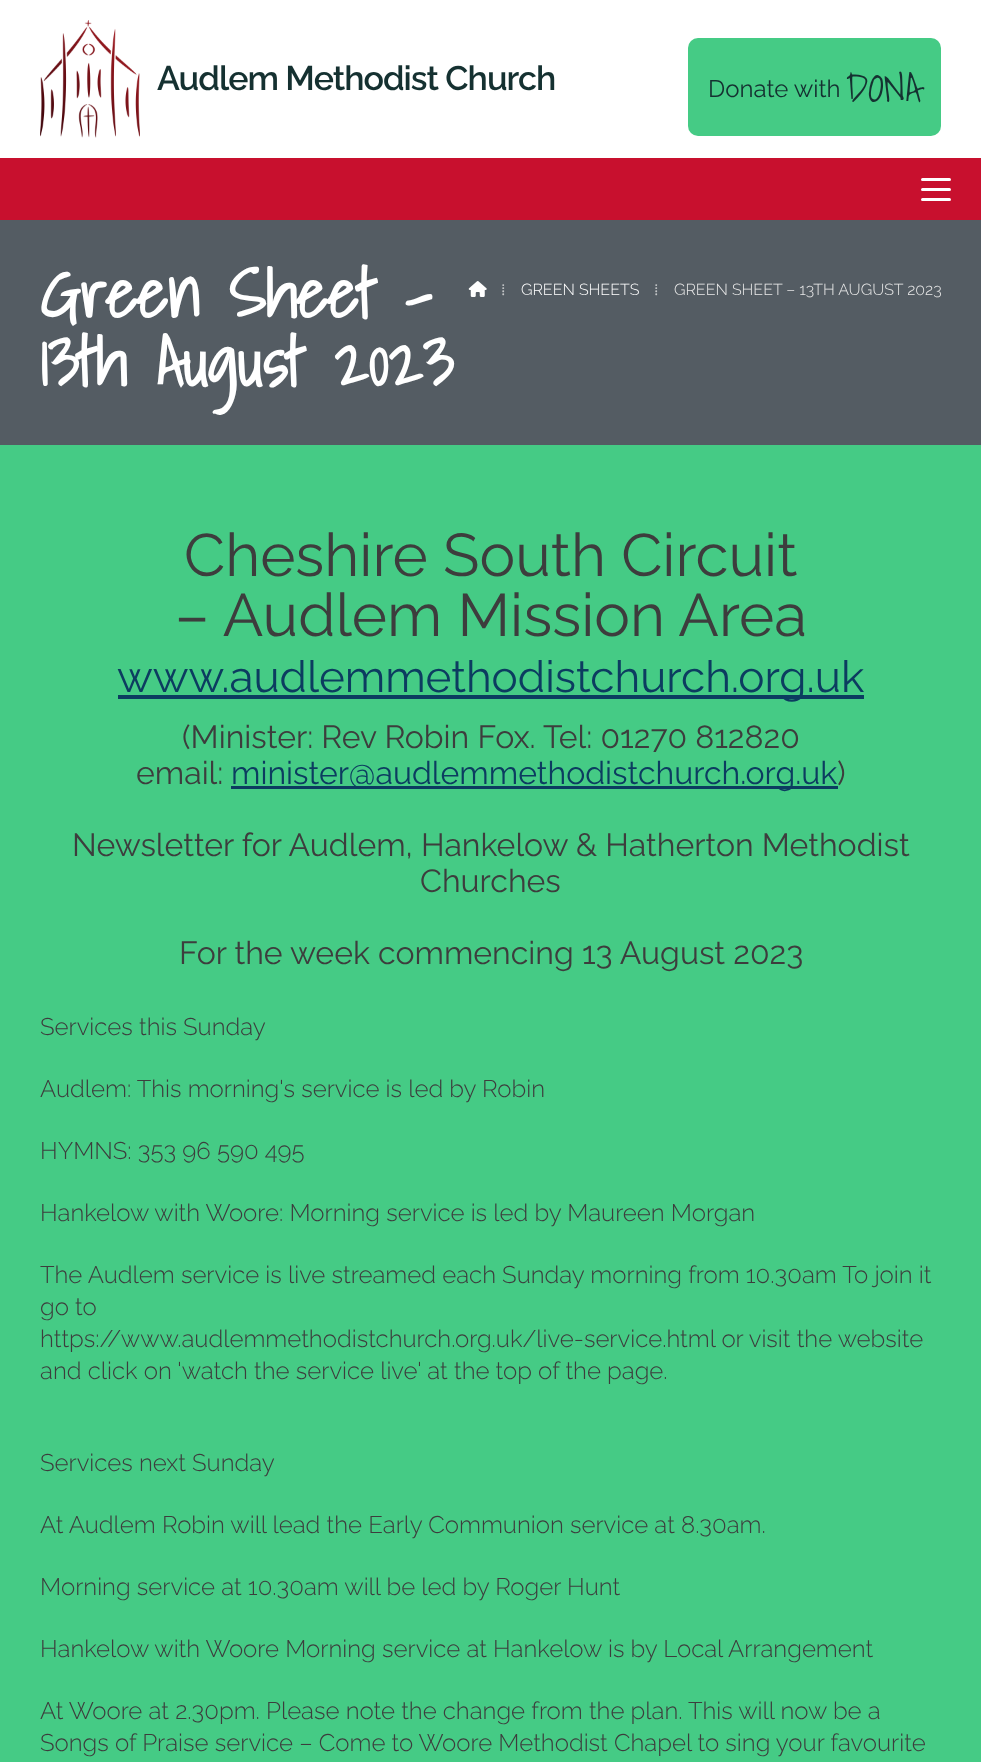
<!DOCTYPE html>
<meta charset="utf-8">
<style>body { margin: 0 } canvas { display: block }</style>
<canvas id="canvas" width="981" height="1762"></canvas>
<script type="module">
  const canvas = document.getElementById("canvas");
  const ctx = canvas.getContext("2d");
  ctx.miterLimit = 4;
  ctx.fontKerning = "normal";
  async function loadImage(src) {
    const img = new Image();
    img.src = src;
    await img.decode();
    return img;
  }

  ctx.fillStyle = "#545c63";
  ctx.fillRect(0, 0, 981, 1762);
  ctx.fillStyle = "#ffffff";
  ctx.fillRect(0, 0, 981, 158);
  ctx.drawImage(await loadImage("img1.png"), 40, 20, 100, 118);
  ctx.letterSpacing = "-1px";
  ctx.font = "600 34px Raleway";
  ctx.fillStyle = "#153131";
  ctx.fillText("Audlem Methodist Church", 157, 90);
  ctx.fillStyle = "#45cb85";
  ctx.beginPath();
  ctx.roundRect(688, 38, 253, 98, 10);
  ctx.fill();
  ctx.letterSpacing = "0px";
  ctx.font = "24px Raleway";
  ctx.fillStyle = "#153131";
  ctx.fillText("Donate with", 708, 97);
  ctx.font = "300 40px Shadows Into Light";
  ctx.fillText("DONA", 846, 102);
  ctx.fillStyle = "#c8102e";
  ctx.fillRect(0, 158, 981, 62);
  ctx.fillStyle = "#ffffff";
  ctx.beginPath();
  ctx.roundRect(921, 178, 30, 3, 1.5);
  ctx.fill();
  ctx.beginPath();
  ctx.roundRect(921, 188, 30, 3, 1.5);
  ctx.fill();
  ctx.beginPath();
  ctx.roundRect(921, 198, 30, 3, 1.5);
  ctx.fill();
  ctx.letterSpacing = "-0.75px";
  ctx.font = "bold 68px Shadows Into Light";
  ctx.fillText("Green Sheet –", 40, 318);
  ctx.fillText("13th August 2023", 40, 386);
  ctx.drawImage(await loadImage("img2.png"), 468, 281, 19, 16);
  ctx.letterSpacing = "0px";
  ctx.font = "16px Liberation Serif";
  ctx.fillStyle = "#c4c6c8";
  ctx.fillText("⁞", 501, 295);
  ctx.font = "300 16px Raleway";
  ctx.fillStyle = "#ffffff";
  ctx.fillText("GREEN SHEETS", 521, 295);
  ctx.font = "16px Liberation Serif";
  ctx.fillStyle = "#c4c6c8";
  ctx.fillText("⁞", 654, 295);
  ctx.font = "300 16px Raleway";
  ctx.fillStyle = "#e9e9e9";
  ctx.fillText("GREEN SHEET – 13TH AUGUST 2023", 674, 295);
  ctx.fillStyle = "#45cb85";
  ctx.fillRect(0, 445, 981, 1317);
  ctx.font = "60px Raleway";
  ctx.fillStyle = "#3d3d3d";
  ctx.fillText("Cheshire South Circuit", 184, 576);
  ctx.fillText("– Audlem Mission Area", 175, 636);
  ctx.fillStyle = "#0c3c60";
  ctx.fillRect(118, 695, 746, 4);
  ctx.font = "44px Raleway";
  ctx.fillText("www.audlemmethodistchurch.org.uk", 117, 692);
  ctx.font = "32px Raleway";
  ctx.fillStyle = "#3d3d3d";
  ctx.fillText("(Minister: Rev Robin Fox. Tel: 01270 812820", 182, 748);
  ctx.fillText("email:", 136, 784);
  ctx.fillStyle = "#0c3c60";
  ctx.fillRect(231, 786, 607, 3);
  ctx.fillText("minister@audlemmethodistchurch.org.uk", 231, 784);
  ctx.fillStyle = "#3d3d3d";
  ctx.fillText(")", 837, 784);
  ctx.fillText("Newsletter for Audlem, Hankelow & Hatherton Methodist", 72, 856);
  ctx.fillText("Churches", 420, 892);
  ctx.fillText("For the week commencing 13 August 2023", 179, 964);
  ctx.font = "300 24px Raleway";
  ctx.fillText("Services this Sunday", 40, 1035);
  ctx.fillText("Audlem: This morning's service is led by Robin", 40, 1097);
  ctx.fillText("HYMNS: 353 96 590 495", 40, 1159);
  ctx.fillText("Hankelow with Woore: Morning service is led by Maureen Morgan", 40, 1221);
  ctx.fillText("The Audlem service is live streamed each Sunday morning from 10.30am To join it", 40, 1283);
  ctx.fillText("go to", 40, 1315);
  ctx.fillText("https://www.audlemmethodistchurch.org.uk/live-service.html or visit the website", 40, 1347);
  ctx.fillText("and click on 'watch the service live' at the top of the page.", 40, 1379);
  ctx.fillText("Services next Sunday", 40, 1471);
  ctx.fillText("At Audlem Robin will lead the Early Communion service at 8.30am.", 40, 1533);
  ctx.fillText("Morning service at 10.30am will be led by Roger Hunt", 40, 1595);
  ctx.fillText("Hankelow with Woore Morning service at Hankelow is by Local Arrangement", 40, 1657);
  ctx.fillText("At Woore at 2.30pm. Please note the change from the plan. This will now be a", 40, 1719);
  ctx.fillText("Songs of Praise service – Come to Woore Methodist Chapel to sing your favourite", 40, 1751);
</script>
